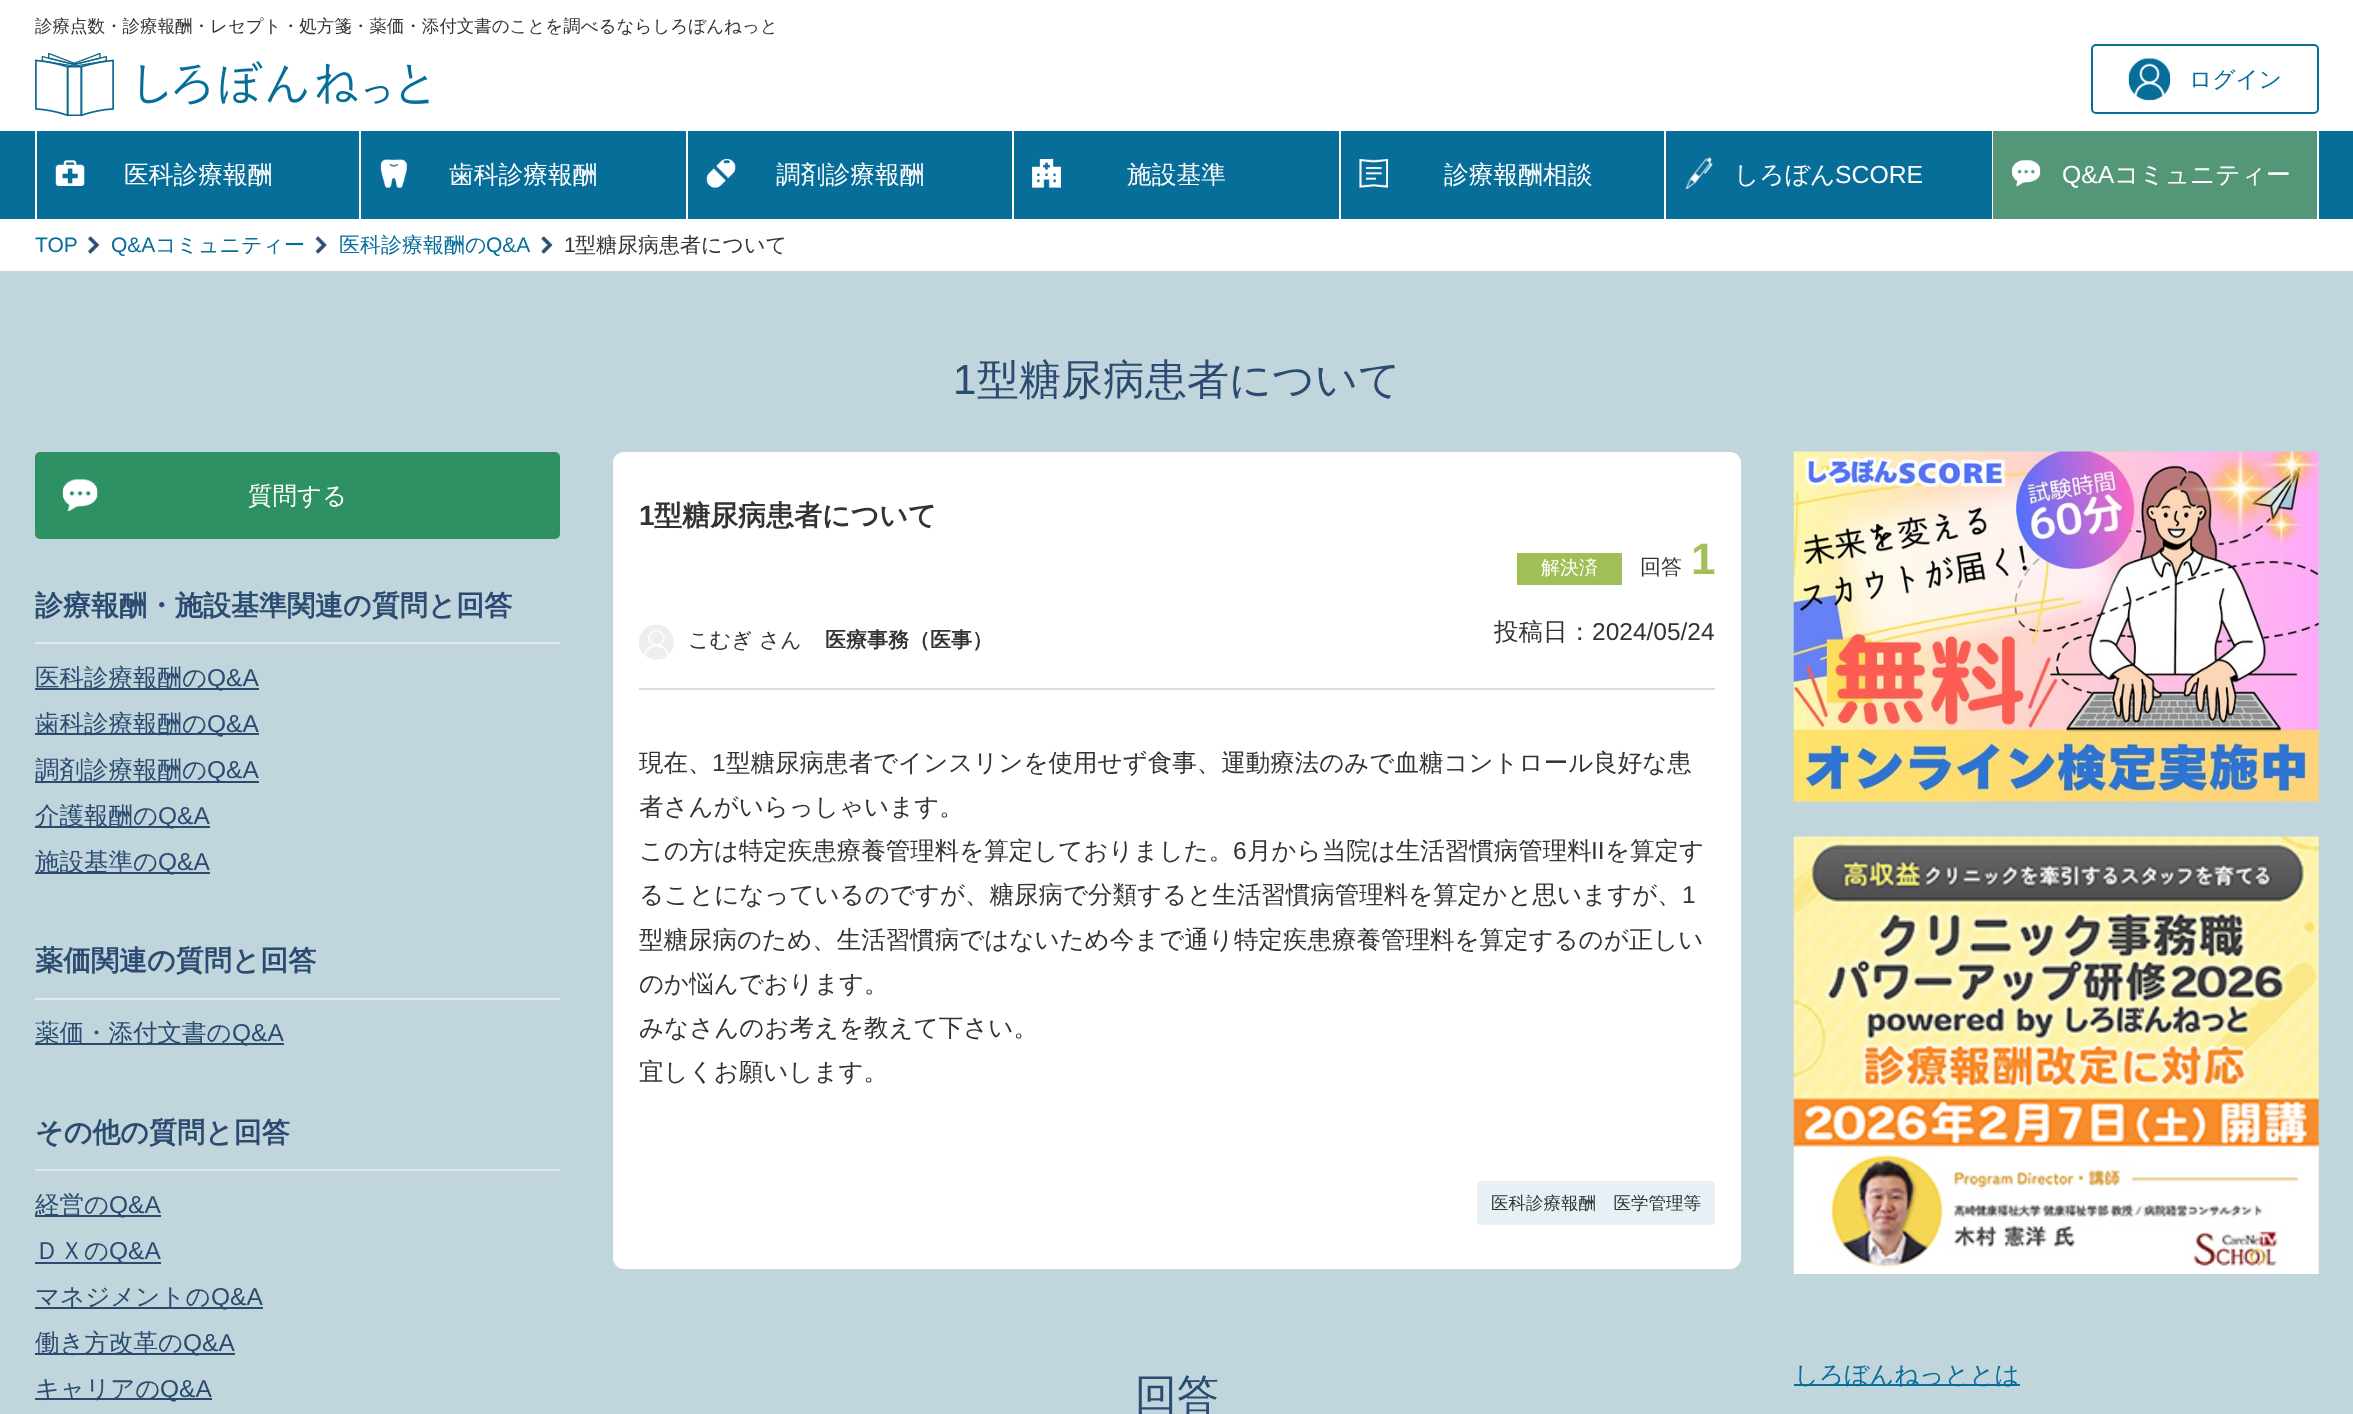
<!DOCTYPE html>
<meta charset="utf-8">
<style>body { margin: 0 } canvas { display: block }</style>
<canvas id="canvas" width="2353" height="1414"></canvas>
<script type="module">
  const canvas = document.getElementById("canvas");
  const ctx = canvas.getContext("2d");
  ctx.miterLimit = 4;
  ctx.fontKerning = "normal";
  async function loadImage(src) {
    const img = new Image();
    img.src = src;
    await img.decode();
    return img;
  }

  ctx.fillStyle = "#c1d5dc";
  ctx.fillRect(0, 0, 2353, 1414);
  ctx.fillStyle = "#ffffff";
  ctx.fillRect(0, 0, 2353, 131);
  ctx.font = "500 17.5px WenQuanYi Zen Hei";
  ctx.fillStyle = "#333333";
  ctx.fillText("診療点数・診療報酬・レセプト・処方箋・薬価・添付文書のことを調べるならしろぼんねっと", 35, 32);
  ctx.drawImage(await loadImage("img1.png"), 35, 53, 394, 64);
  ctx.beginPath();
  ctx.roundRect(2092, 45, 226, 68, 4);
  ctx.strokeStyle = "#076e9a";
  ctx.lineWidth = 2;
  ctx.stroke();
  ctx.drawImage(await loadImage("img2.png"), 2128, 57, 43, 44);
  ctx.font = "500 22.75px WenQuanYi Zen Hei";
  ctx.fillStyle = "#076e9a";
  ctx.fillText("ログイン", 2189, 87);
  ctx.fillRect(0, 131, 2353, 88);
  ctx.fillStyle = "#ffffff";
  ctx.fillRect(359, 131, 2, 88);
  ctx.fillRect(35, 131, 2, 88);
  ctx.drawImage(await loadImage("img3.png"), 55, 160, 30, 26);
  ctx.font = "500 24.75px WenQuanYi Zen Hei";
  ctx.fillText("医科診療報酬", 124, 183);
  ctx.fillRect(686, 131, 2, 88);
  ctx.drawImage(await loadImage("img4.png"), 380, 159, 28, 30);
  ctx.fillText("歯科診療報酬", 449, 183);
  ctx.fillRect(1012, 131, 2, 88);
  ctx.drawImage(await loadImage("img5.png"), 706, 159, 30, 29);
  ctx.fillText("調剤診療報酬", 776, 183);
  ctx.fillRect(1339, 131, 2, 88);
  ctx.drawImage(await loadImage("img6.png"), 1032, 159, 29, 29);
  ctx.fillText("施設基準", 1127, 183);
  ctx.fillRect(1664, 131, 2, 88);
  ctx.drawImage(await loadImage("img7.png"), 1359, 159, 29, 29);
  ctx.fillText("診療報酬相談", 1444, 183);
  ctx.fillRect(1992, 131, 1, 88);
  ctx.drawImage(await loadImage("img8.png"), 1685, 157, 28, 32);
  ctx.fillText("しろぼん", 1734, 183);
  ctx.font = "24.75px Liberation Sans";
  ctx.fillText("SCORE", 1835, 183);
  ctx.fillStyle = "#549778";
  ctx.fillRect(1993, 131, 324, 88);
  ctx.fillStyle = "#ffffff";
  ctx.fillRect(2317, 131, 2, 88);
  ctx.drawImage(await loadImage("img9.png"), 2011, 159, 30, 28);
  ctx.fillText("Q&A", 2062, 183);
  ctx.font = "500 24.75px WenQuanYi Zen Hei";
  ctx.fillText("コミュニティー", 2114, 183);
  ctx.fillRect(0, 219, 2353, 52);
  ctx.font = "21px Liberation Sans";
  ctx.fillStyle = "#076e9a";
  ctx.fillText("TOP", 35, 252);
  ctx.drawImage(await loadImage("img10.png"), 87, 236, 13, 18);
  ctx.fillText("Q&A", 111, 252);
  ctx.font = "500 21px WenQuanYi Zen Hei";
  ctx.fillText("コミュニティー", 155, 252);
  ctx.drawImage(await loadImage("img11.png"), 315, 236, 12, 18);
  ctx.fillText("医科診療報酬の", 339, 252);
  ctx.font = "21px Liberation Sans";
  ctx.fillText("Q&A", 486, 252);
  ctx.drawImage(await loadImage("img12.png"), 541, 236, 12, 18);
  ctx.fillStyle = "#333333";
  ctx.fillText("1", 564, 252);
  ctx.font = "500 21px WenQuanYi Zen Hei";
  ctx.fillText("型糖尿病患者について", 575, 252);
  ctx.font = "42px Liberation Sans";
  ctx.fillStyle = "#2b4b71";
  ctx.fillText("1", 953, 394);
  ctx.font = "500 42px WenQuanYi Zen Hei";
  ctx.fillText("型糖尿病患者について", 977, 394);
  ctx.fillStyle = "#2d9163";
  ctx.beginPath();
  ctx.roundRect(35, 452, 525, 87, 5);
  ctx.fill();
  ctx.drawImage(await loadImage("img13.png"), 62, 478, 36, 34);
  ctx.font = "500 24.5px WenQuanYi Zen Hei";
  ctx.fillStyle = "#ffffff";
  ctx.fillText("質問する", 248, 504);
  ctx.fillStyle = "#e0eaee";
  ctx.fillRect(35, 642, 525, 2);
  ctx.font = "bold 28px WenQuanYi Zen Hei";
  ctx.fillStyle = "#2b4b71";
  ctx.fillText("診療報酬・施設基準関連の質問と回答", 35, 615);
  ctx.fillRect(35, 688, 224, 2);
  ctx.font = "500 24.5px WenQuanYi Zen Hei";
  ctx.fillText("医科診療報酬の", 35, 686);
  ctx.font = "24.5px Liberation Sans";
  ctx.fillText("Q&A", 207, 686);
  ctx.fillRect(35, 733, 224, 2);
  ctx.font = "500 24.5px WenQuanYi Zen Hei";
  ctx.fillText("歯科診療報酬の", 35, 732);
  ctx.font = "24.5px Liberation Sans";
  ctx.fillText("Q&A", 207, 732);
  ctx.fillRect(35, 781, 224, 2);
  ctx.font = "500 24.5px WenQuanYi Zen Hei";
  ctx.fillText("調剤診療報酬の", 35, 778);
  ctx.font = "24.5px Liberation Sans";
  ctx.fillText("Q&A", 207, 778);
  ctx.fillRect(35, 826, 175, 2);
  ctx.font = "500 24.5px WenQuanYi Zen Hei";
  ctx.fillText("介護報酬の", 35, 824);
  ctx.font = "24.5px Liberation Sans";
  ctx.fillText("Q&A", 158, 824);
  ctx.fillRect(35, 872, 175, 2);
  ctx.font = "500 24.5px WenQuanYi Zen Hei";
  ctx.fillText("施設基準の", 35, 870);
  ctx.font = "24.5px Liberation Sans";
  ctx.fillText("Q&A", 158, 870);
  ctx.fillStyle = "#e0eaee";
  ctx.fillRect(35, 998, 525, 2);
  ctx.font = "bold 28px WenQuanYi Zen Hei";
  ctx.fillStyle = "#2b4b71";
  ctx.fillText("薬価関連の質問と回答", 35, 970);
  ctx.fillRect(35, 1043, 249, 2);
  ctx.font = "500 24.5px WenQuanYi Zen Hei";
  ctx.fillText("薬価・添付文書の", 35, 1041);
  ctx.font = "24.5px Liberation Sans";
  ctx.fillText("Q&A", 232, 1041);
  ctx.fillStyle = "#e0eaee";
  ctx.fillRect(35, 1169, 525, 2);
  ctx.font = "bold 28px WenQuanYi Zen Hei";
  ctx.fillStyle = "#2b4b71";
  ctx.fillText("その他の質問と回答", 35, 1142);
  ctx.fillRect(35, 1215, 126, 2);
  ctx.font = "500 24.5px WenQuanYi Zen Hei";
  ctx.fillText("経営の", 35, 1213);
  ctx.font = "24.5px Liberation Sans";
  ctx.fillText("Q&A", 109, 1213);
  ctx.font = "500 24.5px WenQuanYi Zen Hei";
  ctx.fillText("ＤＸの", 35, 1259);
  ctx.fillRect(35, 1262, 126, 2);
  ctx.font = "24.5px Liberation Sans";
  ctx.fillText("Q&A", 109, 1259);
  ctx.fillRect(35, 1307, 228, 2);
  ctx.font = "500 24.5px WenQuanYi Zen Hei";
  ctx.fillText("マネジメントの", 35, 1305);
  ctx.font = "24.5px Liberation Sans";
  ctx.fillText("Q&A", 211, 1305);
  ctx.fillRect(35, 1353, 200, 2);
  ctx.font = "500 24.5px WenQuanYi Zen Hei";
  ctx.fillText("働き方改革の", 35, 1351);
  ctx.font = "24.5px Liberation Sans";
  ctx.fillText("Q&A", 183, 1351);
  ctx.fillRect(35, 1398, 177, 2);
  ctx.font = "500 24.5px WenQuanYi Zen Hei";
  ctx.fillText("キャリアの", 35, 1397);
  ctx.font = "24.5px Liberation Sans";
  ctx.fillText("Q&A", 160, 1397);
  ctx.fillStyle = "#ffffff";
  ctx.beginPath();
  ctx.roundRect(613, 452, 1128, 817, 11);
  ctx.fill();
  ctx.font = "bold 28px Liberation Sans";
  ctx.fillStyle = "#333333";
  ctx.fillText("1", 639, 525);
  ctx.font = "bold 28px WenQuanYi Zen Hei";
  ctx.fillText("型糖尿病患者について", 654, 525);
  ctx.fillStyle = "#dcdcdc";
  ctx.fillRect(639, 688, 1076, 2);
  ctx.fillStyle = "#a0bf57";
  ctx.fillRect(1517, 553, 105, 32);
  ctx.font = "500 19px WenQuanYi Zen Hei";
  ctx.fillStyle = "#ffffff";
  ctx.fillText("解決済", 1541, 574);
  ctx.font = "500 21px WenQuanYi Zen Hei";
  ctx.fillStyle = "#333333";
  ctx.fillText("回答", 1640, 574);
  ctx.font = "bold 44px Liberation Sans";
  ctx.fillStyle = "#a0bf57";
  ctx.fillText("1", 1691, 574);
  ctx.drawImage(await loadImage("img14.png"), 639, 625, 35, 35);
  ctx.font = "500 21px WenQuanYi Zen Hei";
  ctx.fillStyle = "#333333";
  ctx.fillText("こむぎ さん", 688, 647);
  ctx.font = "bold 21px WenQuanYi Zen Hei";
  ctx.fillText("医療事務（医事）", 825, 647);
  ctx.font = "500 24.5px WenQuanYi Zen Hei";
  ctx.fillText("投稿日：", 1494, 640);
  ctx.font = "24.5px Liberation Sans";
  ctx.fillText("2024/05/24", 1592, 640);
  ctx.font = "500 24.5px WenQuanYi Zen Hei";
  ctx.fillText("現在、", 639, 771);
  ctx.font = "24.5px Liberation Sans";
  ctx.fillText("1", 712, 771);
  ctx.font = "500 24.5px WenQuanYi Zen Hei";
  ctx.fillText("型糖尿病患者でインスリンを使用せず食事、運動療法のみで血糖コントロール良好な患", 726, 771);
  ctx.fillText("者さんがいらっしゃいます。", 639, 815);
  ctx.fillText("この方は特定疾患療養管理料を算定しておりました。", 639, 859);
  ctx.font = "24.5px Liberation Sans";
  ctx.fillText("6", 1233, 859);
  ctx.font = "500 24.5px WenQuanYi Zen Hei";
  ctx.fillText("月から当院は生活習慣病管理料", 1247, 859);
  ctx.font = "24.5px Liberation Sans";
  ctx.fillText("II", 1591, 859);
  ctx.font = "500 24.5px WenQuanYi Zen Hei";
  ctx.fillText("を算定す", 1605, 859);
  ctx.fillText("ることになっているのですが、糖尿病で分類すると生活習慣病管理料を算定かと思いますが、", 639, 903);
  ctx.font = "24.5px Liberation Sans";
  ctx.fillText("1", 1682, 903);
  ctx.font = "500 24.5px WenQuanYi Zen Hei";
  ctx.fillText("型糖尿病のため、生活習慣病ではないため今まで通り特定疾患療養管理料を算定するのが正しい", 639, 948);
  ctx.fillText("のか悩んでおります。", 639, 992);
  ctx.fillText("みなさんのお考えを教えて下さい。", 639, 1036);
  ctx.fillText("宜しくお願いします。", 639, 1080);
  ctx.fillStyle = "#e6f0f5";
  ctx.beginPath();
  ctx.roundRect(1477, 1181, 238, 44, 4);
  ctx.fill();
  ctx.font = "500 17.5px WenQuanYi Zen Hei";
  ctx.fillStyle = "#333333";
  ctx.fillText("医科診療報酬　医学管理等", 1491, 1209);
  ctx.font = "500 42px WenQuanYi Zen Hei";
  ctx.fillStyle = "#2b4b71";
  ctx.fillText("回答", 1135, 1409);
  ctx.drawImage(await loadImage("img15.png"), 1793, 451, 526, 351);
  ctx.drawImage(await loadImage("img16.png"), 1793, 836, 526, 438);
  ctx.fillStyle = "#076e9a";
  ctx.fillRect(1794, 1384, 226, 2);
  ctx.font = "500 24.5px WenQuanYi Zen Hei";
  ctx.fillText("しろぼんねっととは", 1794, 1383);
</script>
